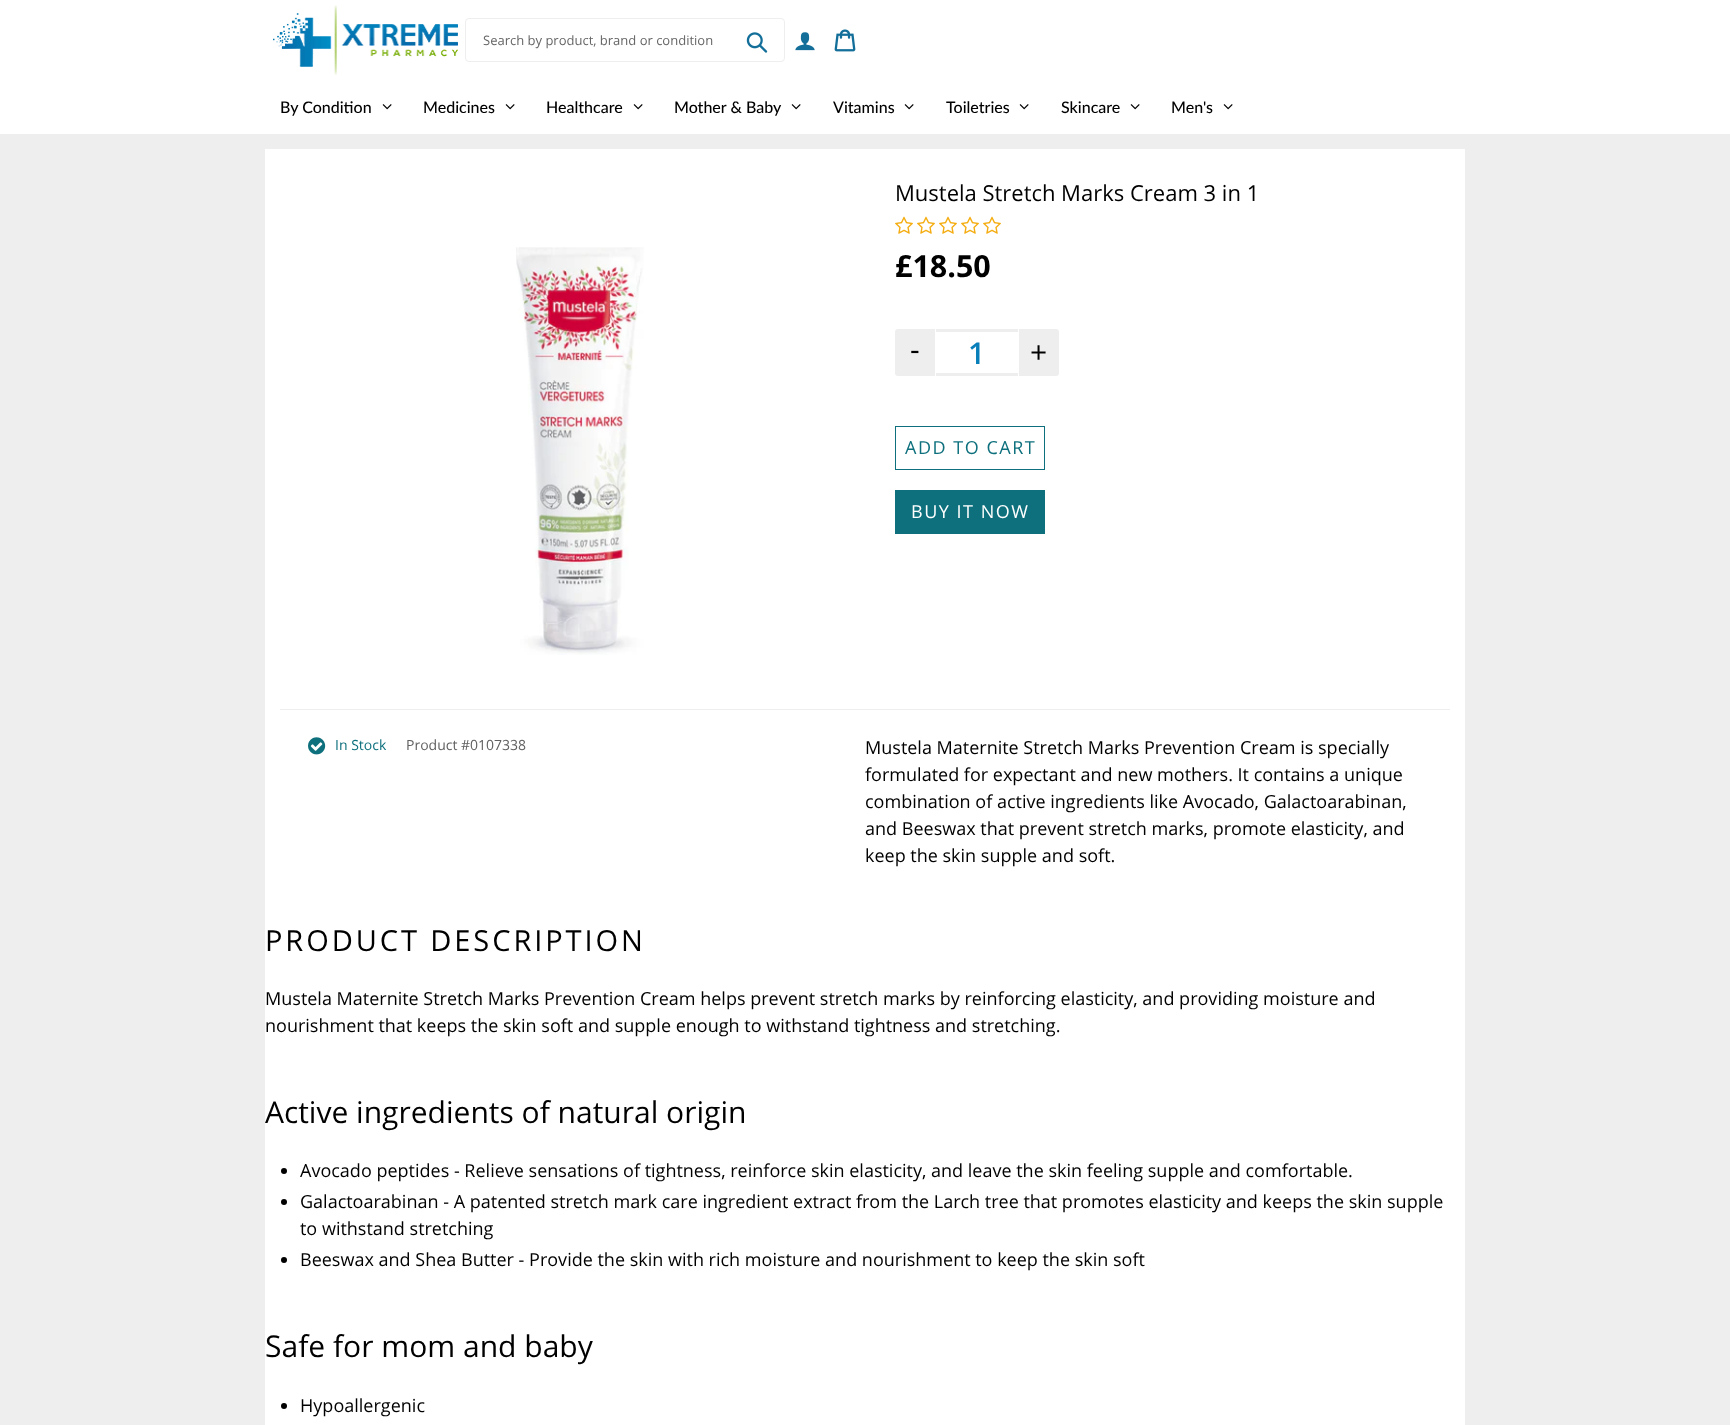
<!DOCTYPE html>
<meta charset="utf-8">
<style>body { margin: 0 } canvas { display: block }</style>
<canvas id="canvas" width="1730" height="1425"></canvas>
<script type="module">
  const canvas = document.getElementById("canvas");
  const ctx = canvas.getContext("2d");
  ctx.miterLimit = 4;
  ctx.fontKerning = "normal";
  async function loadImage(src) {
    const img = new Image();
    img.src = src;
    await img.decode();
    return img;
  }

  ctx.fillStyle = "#ffffff";
  ctx.fillRect(0, 0, 1730, 1425);
  ctx.drawImage(await loadImage("img1.png"), 273, 5, 185, 70);
  ctx.beginPath();
  ctx.roundRect(465.5, 18.5, 319, 43, 3.5);
  ctx.strokeStyle = "#eeeeee";
  ctx.stroke();
  ctx.font = "13px Open Sans";
  ctx.fillStyle = "#666666";
  ctx.fillText("Search by product, brand or condition", 483, 45);
  ctx.drawImage(await loadImage("img2.png"), 746, 32, 22, 21);
  ctx.drawImage(await loadImage("img3.png"), 795, 32, 20, 19);
  ctx.drawImage(await loadImage("img4.png"), 834, 29, 22, 23);
  ctx.font = "500 16px Lato";
  ctx.fillStyle = "#000000";
  ctx.fillText("By Condition", 280, 113);
  ctx.drawImage(await loadImage("img5.png"), 382, 104, 10, 6);
  ctx.fillText("Medicines", 423, 113);
  ctx.drawImage(await loadImage("img5.png"), 505, 104, 10, 6);
  ctx.fillText("Healthcare", 546, 113);
  ctx.drawImage(await loadImage("img5.png"), 633, 104, 10, 6);
  ctx.fillText("Mother & Baby", 674, 113);
  ctx.drawImage(await loadImage("img5.png"), 791, 104, 10, 6);
  ctx.fillText("Vitamins", 833, 113);
  ctx.drawImage(await loadImage("img5.png"), 904, 104, 10, 6);
  ctx.fillText("Toiletries", 946, 113);
  ctx.drawImage(await loadImage("img5.png"), 1019, 104, 10, 6);
  ctx.fillText("Skincare", 1061, 113);
  ctx.drawImage(await loadImage("img5.png"), 1130, 104, 10, 6);
  ctx.fillText("Men's", 1171, 113);
  ctx.drawImage(await loadImage("img5.png"), 1223, 104, 10, 6);
  ctx.fillStyle = "#eeeeee";
  ctx.fillRect(0, 134, 1730, 1291);
  ctx.fillStyle = "#ffffff";
  ctx.fillRect(265, 149, 1200, 1276);
  ctx.drawImage(await loadImage("img6.png"), 516, 247, 128, 408);
  ctx.font = "22px Open Sans";
  ctx.fillStyle = "#000000";
  ctx.fillText("Mustela Stretch Marks Cream 3 in 1", 895, 201);
  ctx.drawImage(await loadImage("img7.png"), 895, 216, 18, 18);
  ctx.drawImage(await loadImage("img7.png"), 917, 216, 18, 18);
  ctx.drawImage(await loadImage("img7.png"), 939, 216, 18, 18);
  ctx.drawImage(await loadImage("img7.png"), 961, 216, 18, 18);
  ctx.drawImage(await loadImage("img7.png"), 983, 216, 18, 18);
  ctx.font = "bold 30.5px Open Sans";
  ctx.fillText("£18.50", 895, 277);
  ctx.fillStyle = "#eeeeee";
  ctx.beginPath();
  ctx.roundRect(895, 329, 40, 47, [3, 0, 0, 3]);
  ctx.fill();
  ctx.font = "30px Open Sans";
  ctx.fillStyle = "#000000";
  ctx.fillText("-", 910, 360);
  ctx.fillStyle = "#eeeeee";
  ctx.fillRect(936, 329, 82, 3);
  ctx.fillRect(936, 373, 82, 3);
  ctx.font = "600 30px Open Sans";
  ctx.fillStyle = "#097fb9";
  ctx.fillText("1", 968, 364);
  ctx.fillStyle = "#eeeeee";
  ctx.beginPath();
  ctx.roundRect(1019, 329, 40, 47, [0, 3, 3, 0]);
  ctx.fill();
  ctx.font = "30px Open Sans";
  ctx.fillStyle = "#000000";
  ctx.fillText("+", 1030, 363);
  ctx.strokeStyle = "#0e707d";
  ctx.strokeRect(895.5, 426.5, 149, 43);
  ctx.letterSpacing = "1.5px";
  ctx.font = "18px Open Sans";
  ctx.fillStyle = "#0e707d";
  ctx.fillText("ADD TO CART", 905, 454);
  ctx.fillRect(895, 490, 150, 44);
  ctx.fillStyle = "#ffffff";
  ctx.fillText("BUY IT NOW", 911, 518);
  ctx.fillStyle = "#eeeeee";
  ctx.fillRect(280, 709, 1170, 1);
  ctx.drawImage(await loadImage("img8.png"), 308, 737, 18, 18);
  ctx.letterSpacing = "0px";
  ctx.font = "14px Open Sans";
  ctx.fillStyle = "#0e707d";
  ctx.fillText("In Stock", 335, 750);
  ctx.fillStyle = "#606060";
  ctx.fillText("Product #0107338", 406, 750);
  ctx.font = "18px Open Sans";
  ctx.fillStyle = "#000000";
  ctx.fillText("Mustela Maternite Stretch Marks Prevention Cream is specially", 865, 754);
  ctx.fillText("formulated for expectant and new mothers. It contains a unique", 865, 781);
  ctx.fillText("combination of active ingredients like Avocado, Galactoarabinan,", 865, 808);
  ctx.fillText("and Beeswax that prevent stretch marks, promote elasticity, and", 865, 835);
  ctx.fillText("keep the skin supple and soft.", 865, 862);
  ctx.letterSpacing = "2.9px";
  ctx.font = "29px Open Sans";
  ctx.fillText("PRODUCT DESCRIPTION", 265, 951);
  ctx.letterSpacing = "0px";
  ctx.font = "18px Open Sans";
  ctx.fillText("Mustela Maternite Stretch Marks Prevention Cream helps prevent stretch marks by reinforcing elasticity, and providing moisture and", 265, 1005);
  ctx.fillText("nourishment that keeps the skin soft and supple enough to withstand tightness and stretching.", 265, 1032);
  ctx.font = "30px Open Sans";
  ctx.fillText("Active ingredients of natural origin", 265, 1123);
  ctx.beginPath();
  ctx.arc(284, 1171, 3, 0, Math.PI * 2);
  ctx.fill();
  ctx.font = "18px Open Sans";
  ctx.fillText("Avocado peptides - Relieve sensations of tightness, reinforce skin elasticity, and leave the skin feeling supple and comfortable.", 300, 1177);
  ctx.beginPath();
  ctx.arc(284, 1202, 3, 0, Math.PI * 2);
  ctx.fill();
  ctx.fillText("Galactoarabinan - A patented stretch mark care ingredient extract from the Larch tree that promotes elasticity and keeps the skin supple", 300, 1208);
  ctx.fillText("to withstand stretching", 300, 1235);
  ctx.beginPath();
  ctx.arc(284, 1260, 3, 0, Math.PI * 2);
  ctx.fill();
  ctx.fillText("Beeswax and Shea Butter - Provide the skin with rich moisture and nourishment to keep the skin soft", 300, 1266);
  ctx.font = "30px Open Sans";
  ctx.fillText("Safe for mom and baby", 265, 1357);
  ctx.beginPath();
  ctx.arc(284, 1406, 3, 0, Math.PI * 2);
  ctx.fill();
  ctx.font = "18px Open Sans";
  ctx.fillText("Hypoallergenic", 300, 1412);
</script>
